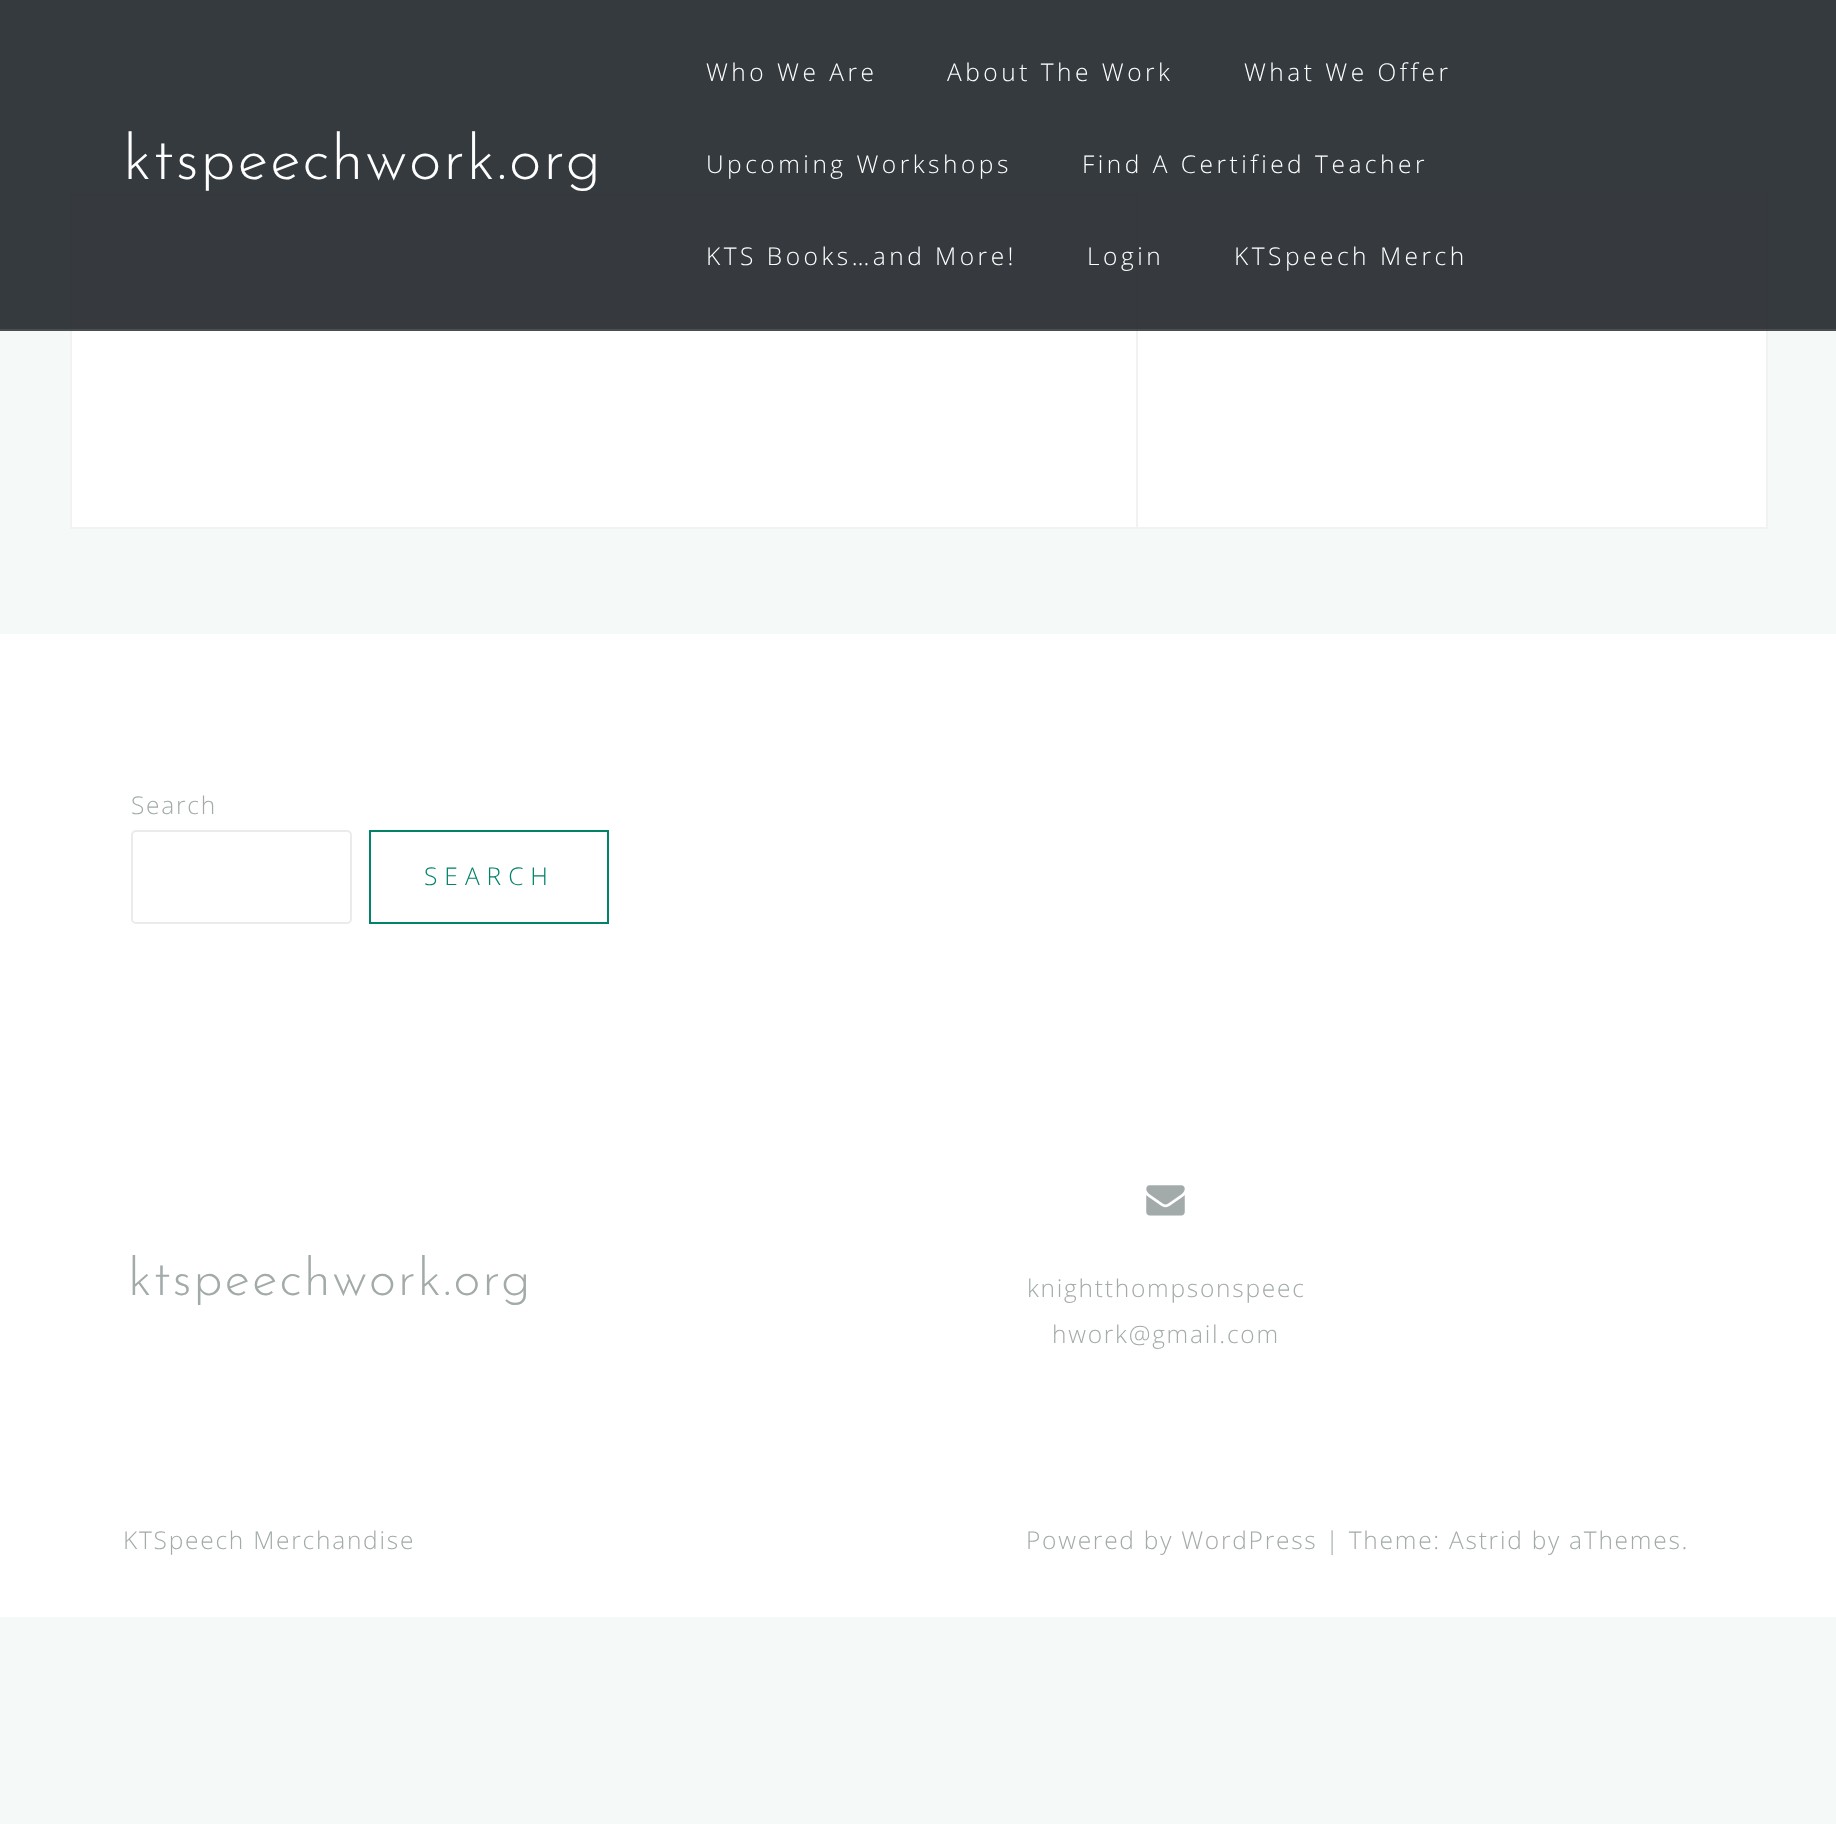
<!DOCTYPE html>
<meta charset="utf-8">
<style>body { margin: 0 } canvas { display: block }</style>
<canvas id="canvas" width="1836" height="1824"></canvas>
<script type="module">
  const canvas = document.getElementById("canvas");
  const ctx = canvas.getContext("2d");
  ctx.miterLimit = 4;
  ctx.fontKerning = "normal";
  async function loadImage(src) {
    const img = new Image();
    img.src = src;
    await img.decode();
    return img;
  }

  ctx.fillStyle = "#f5f9f8";
  ctx.fillRect(0, 0, 1836, 1824);
  ctx.fillStyle = "#ffffff";
  ctx.fillRect(1138, 194, 628, 333);
  ctx.fillStyle = "#f2f2f3";
  ctx.fillRect(1766, 194, 2, 335);
  ctx.fillStyle = "#ffffff";
  ctx.beginPath();
  ctx.rect(71, 195, 1066, 333);
  ctx.fill();
  ctx.strokeStyle = "#f2f2f3";
  ctx.lineWidth = 2;
  ctx.stroke();
  ctx.fillStyle = "rgba(32, 37, 41, 0.9)";
  ctx.fillRect(0, 0, 1836, 331);
  ctx.fillStyle = "rgba(255, 255, 255, 0.1)";
  ctx.fillRect(0, 329, 1836, 2);
  ctx.letterSpacing = "1.75px";
  ctx.font = "100 63px Josefin Sans";
  ctx.fillStyle = "#ffffff";
  ctx.fillText("ktspeechwork.org", 123, 179);
  ctx.letterSpacing = "3.5px";
  ctx.font = "300 24.5px Open Sans";
  ctx.fillText("Who We Are", 706, 81);
  ctx.fillText("About The Work", 947, 81);
  ctx.fillText("What We Offer", 1244, 81);
  ctx.fillText("Upcoming Workshops", 706, 173);
  ctx.fillText("Find A Certified Teacher", 1082, 173);
  ctx.fillText("KTS Books…and More!", 706, 265);
  ctx.fillText("Login", 1087, 265);
  ctx.fillText("KTSpeech Merch", 1234, 265);
  ctx.fillStyle = "#f2f2f3";
  ctx.fillRect(1138, 527, 630, 2);
  ctx.fillStyle = "#ffffff";
  ctx.fillRect(0, 634, 1836, 983);
  ctx.letterSpacing = "1.75px";
  ctx.fillStyle = "#a3aaaa";
  ctx.fillText("Search", 131, 814);
  ctx.beginPath();
  ctx.roundRect(132, 831, 219, 92, 4);
  ctx.strokeStyle = "#ebebeb";
  ctx.stroke();
  ctx.strokeStyle = "#028268";
  ctx.strokeRect(370, 831, 238, 92);
  ctx.letterSpacing = "7px";
  ctx.fillStyle = "#028268";
  ctx.fillText("SEARCH", 424, 885);
  ctx.letterSpacing = "1.75px";
  ctx.font = "100 52.5px Josefin Sans";
  ctx.fillStyle = "#a3aaaa";
  ctx.fillText("ktspeechwork.org", 128, 1295);
  ctx.drawImage(await loadImage("img1.png"), 1146, 1185, 39, 31);
  ctx.font = "300 24.5px Open Sans";
  ctx.fillText("knightthompsonspeec", 1027, 1297);
  ctx.fillText("hwork@gmail.com", 1052, 1343);
  ctx.fillText("KTSpeech Merchandise", 123, 1549);
  ctx.fillText("Powered by WordPress | Theme: Astrid by aThemes.", 1026, 1549);
</script>
